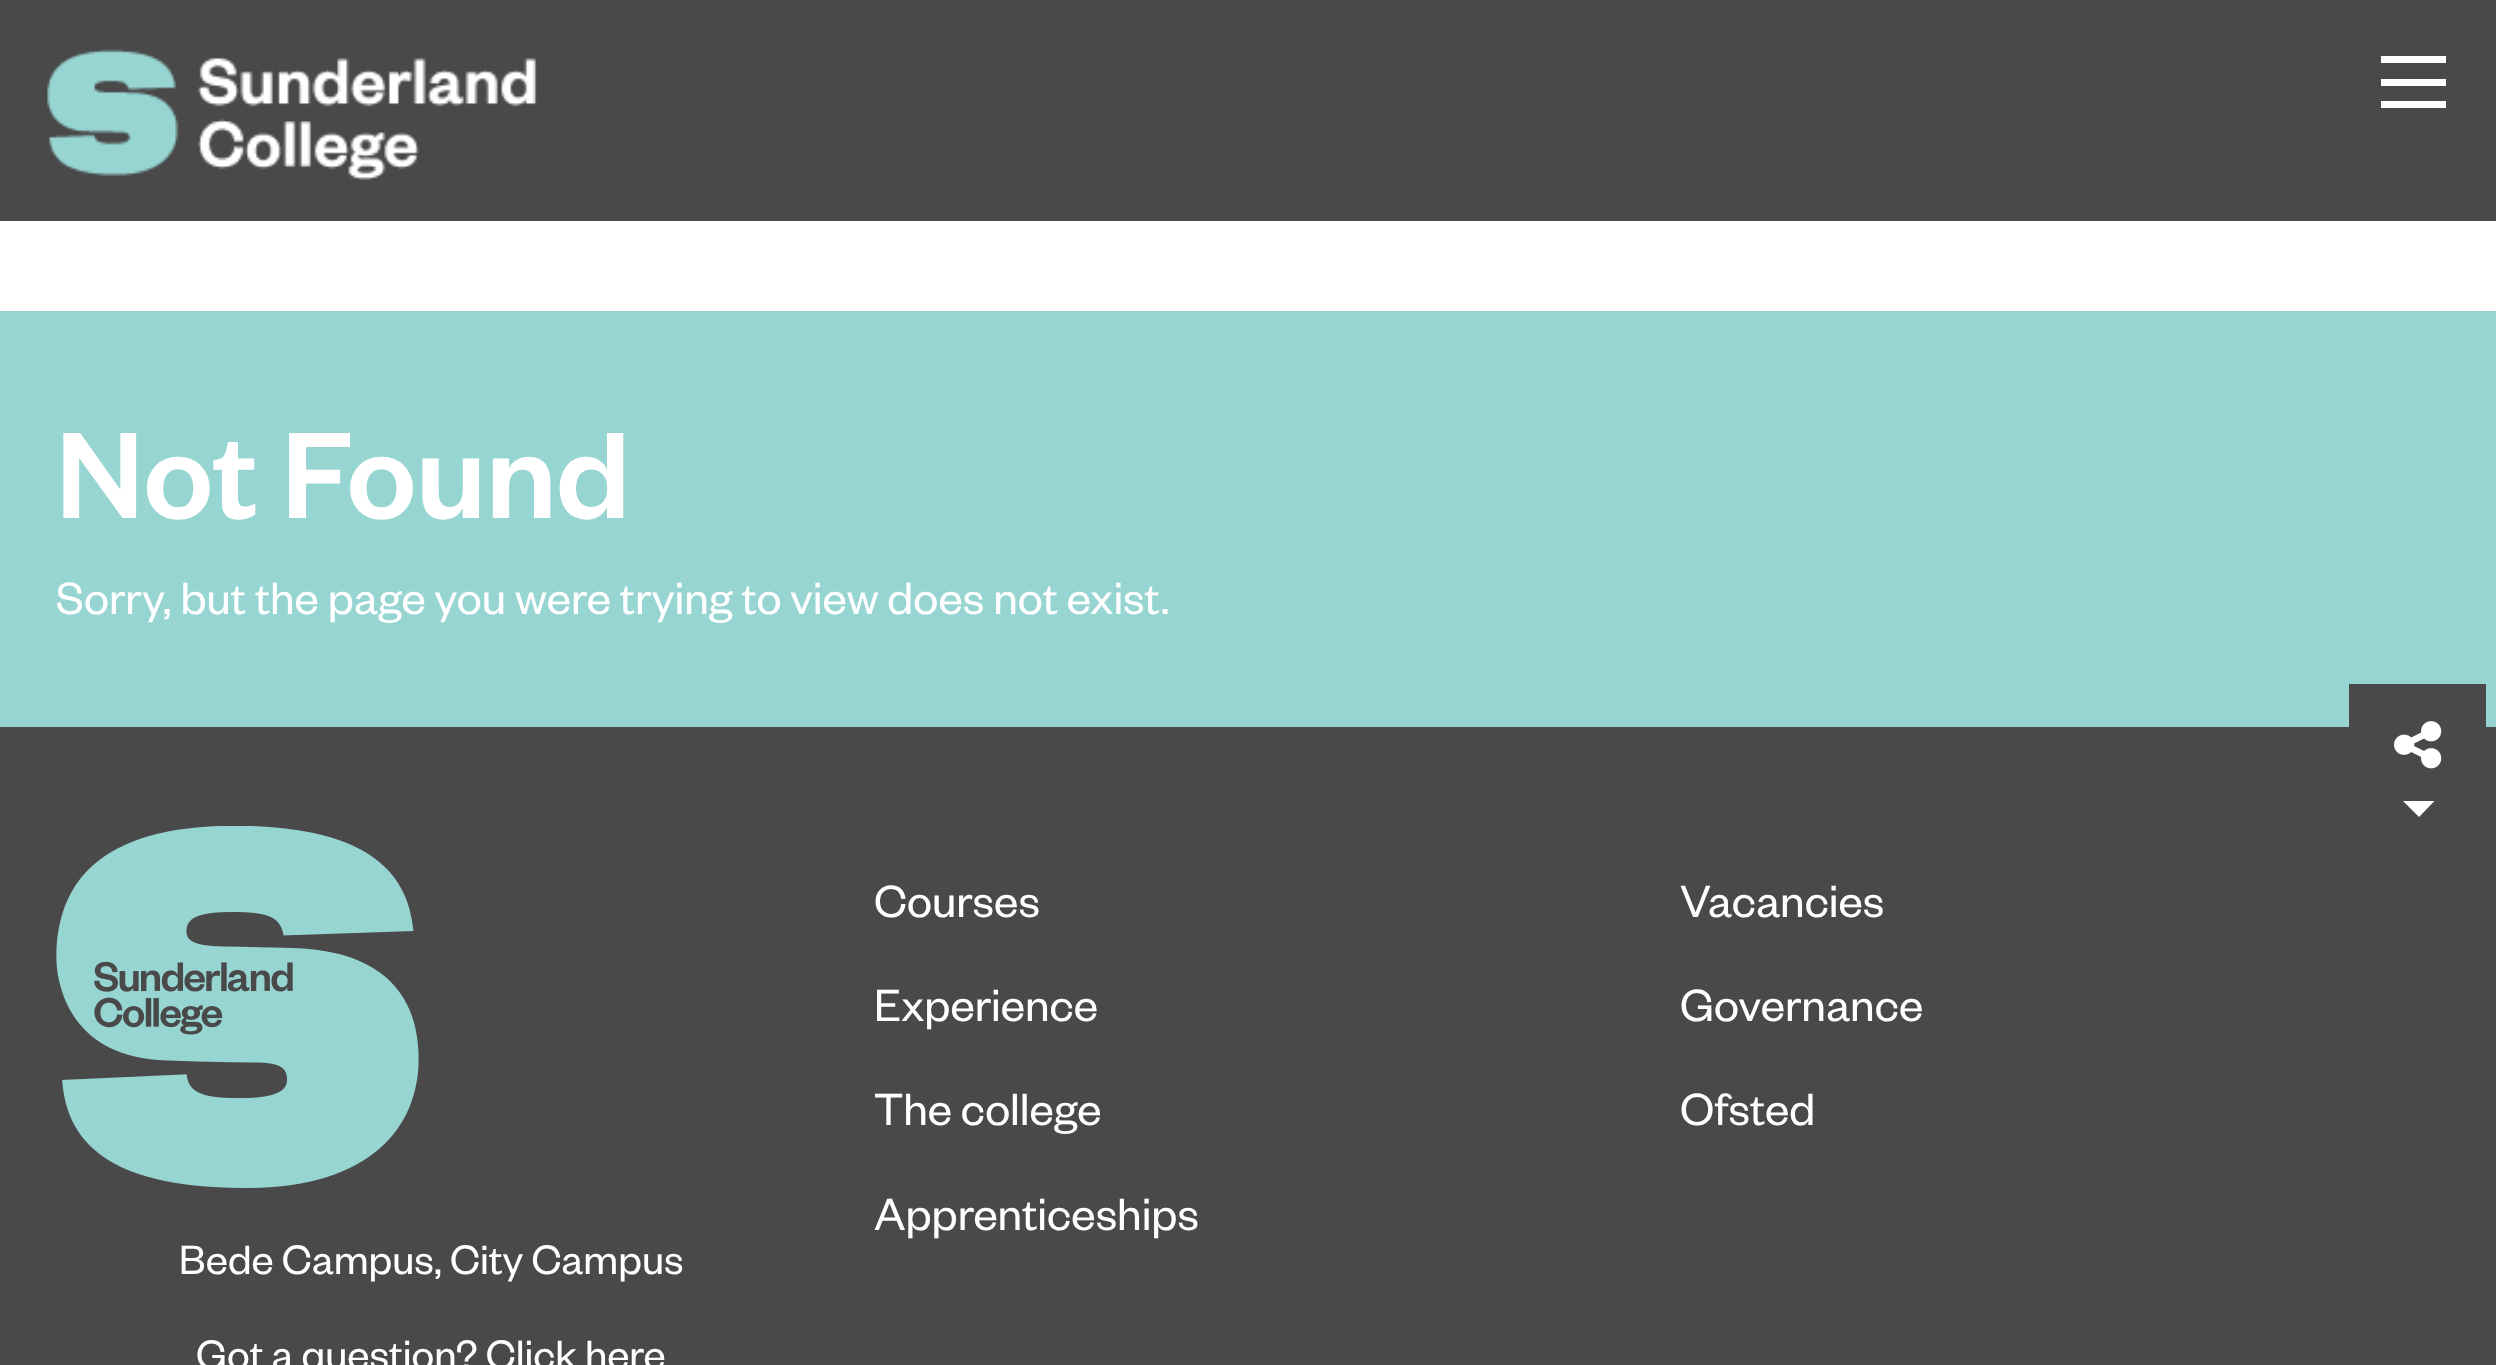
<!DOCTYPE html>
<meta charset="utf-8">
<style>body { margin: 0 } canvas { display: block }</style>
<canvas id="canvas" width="2496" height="1365"></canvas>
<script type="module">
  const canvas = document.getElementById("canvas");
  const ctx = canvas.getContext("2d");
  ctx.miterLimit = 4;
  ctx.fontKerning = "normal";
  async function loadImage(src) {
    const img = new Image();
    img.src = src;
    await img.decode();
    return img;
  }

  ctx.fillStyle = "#ffffff";
  ctx.fillRect(0, 0, 2496, 1365);
  ctx.fillStyle = "#4a4949";
  ctx.fillRect(0, 0, 2496, 221);
  ctx.drawImage(await loadImage("img1.png"), 47, 49, 490, 131);
  ctx.fillStyle = "#ffffff";
  ctx.fillRect(2381, 56, 65, 7);
  ctx.fillRect(2381, 79, 65, 7);
  ctx.fillRect(2381, 101, 65, 7);
  ctx.fillStyle = "#96d5d2";
  ctx.fillRect(0, 311, 2496, 416);
  ctx.font = "500 135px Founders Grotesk";
  ctx.fillStyle = "#ffffff";
  ctx.fillText("Not Found", 56, 518);
  ctx.font = "49.5px Founders Grotesk";
  ctx.fillText("Sorry, but the page you were trying to view does not exist.", 56, 614);
  ctx.fillStyle = "#4a4949";
  ctx.fillRect(0, 727, 2496, 638);
  ctx.fillStyle = "#ffffff";
  ctx.fillText("Courses", 874, 917);
  ctx.fillText("Vacancies", 1680, 917);
  ctx.fillText("Experience", 874, 1021);
  ctx.fillText("Governance", 1680, 1021);
  ctx.fillText("The college", 874, 1125);
  ctx.fillText("Ofsted", 1680, 1125);
  ctx.fillText("Apprenticeships", 874, 1230);
  ctx.drawImage(await loadImage("img2.png"), 56, 826, 363, 362);
  ctx.font = "45px Founders Grotesk";
  ctx.fillText("Bede Campus", 179, 1274);
  ctx.fillText(", City Campus", 434, 1274);
  ctx.fillText("Got a question? Click here", 196, 1369);
  ctx.fillStyle = "#4a4949";
  ctx.fillRect(2349, 684, 137, 43);
  ctx.drawImage(await loadImage("img3.png"), 2394, 721, 48, 48);
  ctx.fillStyle = "#ffffff";
  ctx.beginPath();
  ctx.moveTo(2403, 801);
  ctx.lineTo(2434.5, 801);
  ctx.lineTo(2419, 817);
  ctx.closePath();
  ctx.fill();
</script>
